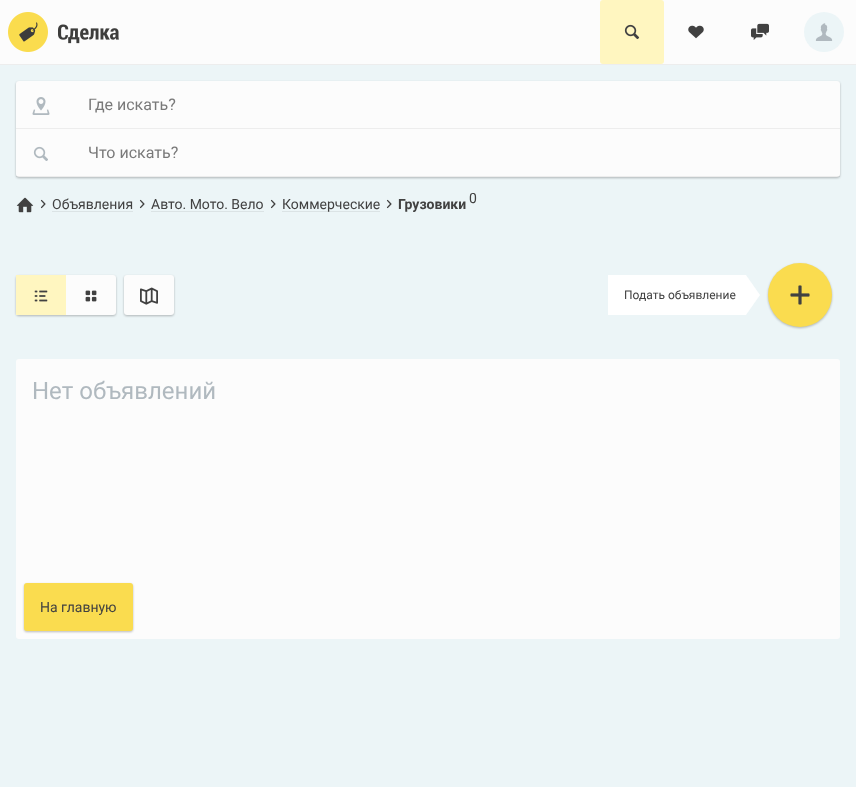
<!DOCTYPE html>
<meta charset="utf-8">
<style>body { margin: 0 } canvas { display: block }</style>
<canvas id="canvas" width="856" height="787"></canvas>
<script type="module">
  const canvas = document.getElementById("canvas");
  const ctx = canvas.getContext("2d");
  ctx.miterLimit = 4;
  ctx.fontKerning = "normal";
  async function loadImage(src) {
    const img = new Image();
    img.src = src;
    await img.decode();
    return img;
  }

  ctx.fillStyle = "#ecf5f7";
  ctx.fillRect(0, 0, 856, 787);
  ctx.fillStyle = "#fcfcfc";
  ctx.fillRect(0, 0, 856, 64);
  ctx.fillStyle = "#ededed";
  ctx.fillRect(0, 64, 856, 1);
  ctx.drawImage(await loadImage("img1.png"), 8, 12, 111, 40);
  ctx.fillStyle = "#fff6c0";
  ctx.beginPath();
  ctx.roundRect(600, 0, 64, 64, 3);
  ctx.fill();
  ctx.drawImage(await loadImage("img2.png"), 624, 24, 16, 16);
  ctx.drawImage(await loadImage("img3.png"), 688, 25, 16, 14);
  ctx.drawImage(await loadImage("img4.png"), 751, 23, 18, 17);
  ctx.fillStyle = "#ecf5f7";
  ctx.beginPath();
  ctx.arc(824, 32, 20, 0, Math.PI * 2);
  ctx.fill();
  ctx.drawImage(await loadImage("img5.png"), 815, 23, 18, 18);
  ctx.fillStyle = "rgba(0, 0, 0, 0.26)";
  ctx.filter = "blur(1px)";
  ctx.beginPath();
  ctx.roundRect(16, 82, 824, 96, 3);
  ctx.fill();
  ctx.filter = "none";
  ctx.fillStyle = "#fcfcfc";
  ctx.beginPath();
  ctx.roundRect(16, 81, 824, 96, 3);
  ctx.fill();
  ctx.drawImage(await loadImage("img6.png"), 32, 97, 18, 18);
  ctx.font = "16px Roboto";
  ctx.fillStyle = "#797979";
  ctx.fillText("Где искать?", 88, 110);
  ctx.fillStyle = "#ededed";
  ctx.fillRect(16, 128, 824, 1);
  ctx.drawImage(await loadImage("img7.png"), 33, 146, 15, 15);
  ctx.fillStyle = "#797979";
  ctx.fillText("Что искать?", 88, 158);
  ctx.fillStyle = "rgba(0, 0, 0, 0.06)";
  ctx.fillRect(16, 176, 824, 1);
  ctx.drawImage(await loadImage("img8.png"), 16, 197, 18, 16);
  ctx.drawImage(await loadImage("img9.png"), 40, 199, 6, 10);
  ctx.font = "14px Roboto";
  ctx.fillStyle = "#414141";
  ctx.fillText("Объявления", 52, 209);
  ctx.fillStyle = "#dbe3e5";
  ctx.fillRect(52, 211, 81, 1);
  ctx.drawImage(await loadImage("img9.png"), 139, 199, 6, 10);
  ctx.fillStyle = "#414141";
  ctx.fillText("Авто. Мото. Вело", 151, 209);
  ctx.fillStyle = "#dbe3e5";
  ctx.fillRect(151, 211, 113, 1);
  ctx.drawImage(await loadImage("img9.png"), 270, 199, 6, 10);
  ctx.fillRect(282, 211, 98, 1);
  ctx.fillStyle = "#414141";
  ctx.fillText("Коммерческие", 282, 209);
  ctx.drawImage(await loadImage("img9.png"), 386, 199, 6, 10);
  ctx.font = "bold 14px Roboto";
  ctx.fillText("Грузовики", 398, 209);
  ctx.font = "14px Roboto";
  ctx.fillText("0", 469, 203);
  ctx.fillStyle = "rgba(0, 0, 0, 0.26)";
  ctx.filter = "blur(1px)";
  ctx.beginPath();
  ctx.roundRect(16, 276, 100, 40, 3);
  ctx.fill();
  ctx.filter = "none";
  ctx.fillStyle = "#fcfcfc";
  ctx.beginPath();
  ctx.roundRect(16, 275, 100, 40, 3);
  ctx.fill();
  ctx.fillStyle = "#fff6c0";
  ctx.fillRect(16, 275, 50, 40);
  ctx.drawImage(await loadImage("img10.png"), 34, 290, 14, 12);
  ctx.drawImage(await loadImage("img11.png"), 85, 290, 12, 12);
  ctx.fillStyle = "rgba(0, 0, 0, 0.26)";
  ctx.filter = "blur(1px)";
  ctx.beginPath();
  ctx.roundRect(124, 276, 50, 40, 3);
  ctx.fill();
  ctx.filter = "none";
  ctx.fillStyle = "#fcfcfc";
  ctx.beginPath();
  ctx.roundRect(124, 275, 50, 40, 3);
  ctx.fill();
  ctx.drawImage(await loadImage("img12.png"), 140, 287, 18, 18);
  ctx.fillStyle = "#ffffff";
  ctx.beginPath();
  ctx.moveTo(746, 315);
  ctx.lineTo(608, 315);
  ctx.lineTo(608, 275);
  ctx.lineTo(746, 275);
  ctx.lineTo(760, 295);
  ctx.closePath();
  ctx.fill();
  ctx.font = "12px Roboto";
  ctx.fillStyle = "#414141";
  ctx.fillText("Подать объявление", 624, 299);
  ctx.fillStyle = "rgba(0, 0, 0, 0.26)";
  ctx.filter = "blur(1px)";
  ctx.beginPath();
  ctx.roundRect(768, 264, 64, 64, 32);
  ctx.fill();
  ctx.filter = "none";
  ctx.fillStyle = "#fadc4f";
  ctx.beginPath();
  ctx.arc(800, 295, 32, 0, Math.PI * 2);
  ctx.fill();
  ctx.drawImage(await loadImage("img13.png"), 790, 285, 20, 20);
  ctx.fillStyle = "#fcfcfc";
  ctx.beginPath();
  ctx.roundRect(16, 359, 824, 280, 3);
  ctx.fill();
  ctx.font = "24px Roboto";
  ctx.fillStyle = "#b0b9bf";
  ctx.fillText("Нет объявлений", 32, 399);
  ctx.fillStyle = "rgba(0, 0, 0, 0.26)";
  ctx.filter = "blur(1px)";
  ctx.beginPath();
  ctx.roundRect(24, 584, 109, 48, 3);
  ctx.fill();
  ctx.filter = "none";
  ctx.fillStyle = "#fadc4f";
  ctx.beginPath();
  ctx.roundRect(24, 583, 109, 48, 3);
  ctx.fill();
  ctx.font = "14px Roboto";
  ctx.fillStyle = "#414141";
  ctx.fillText("На главную", 40, 612);
</script>
